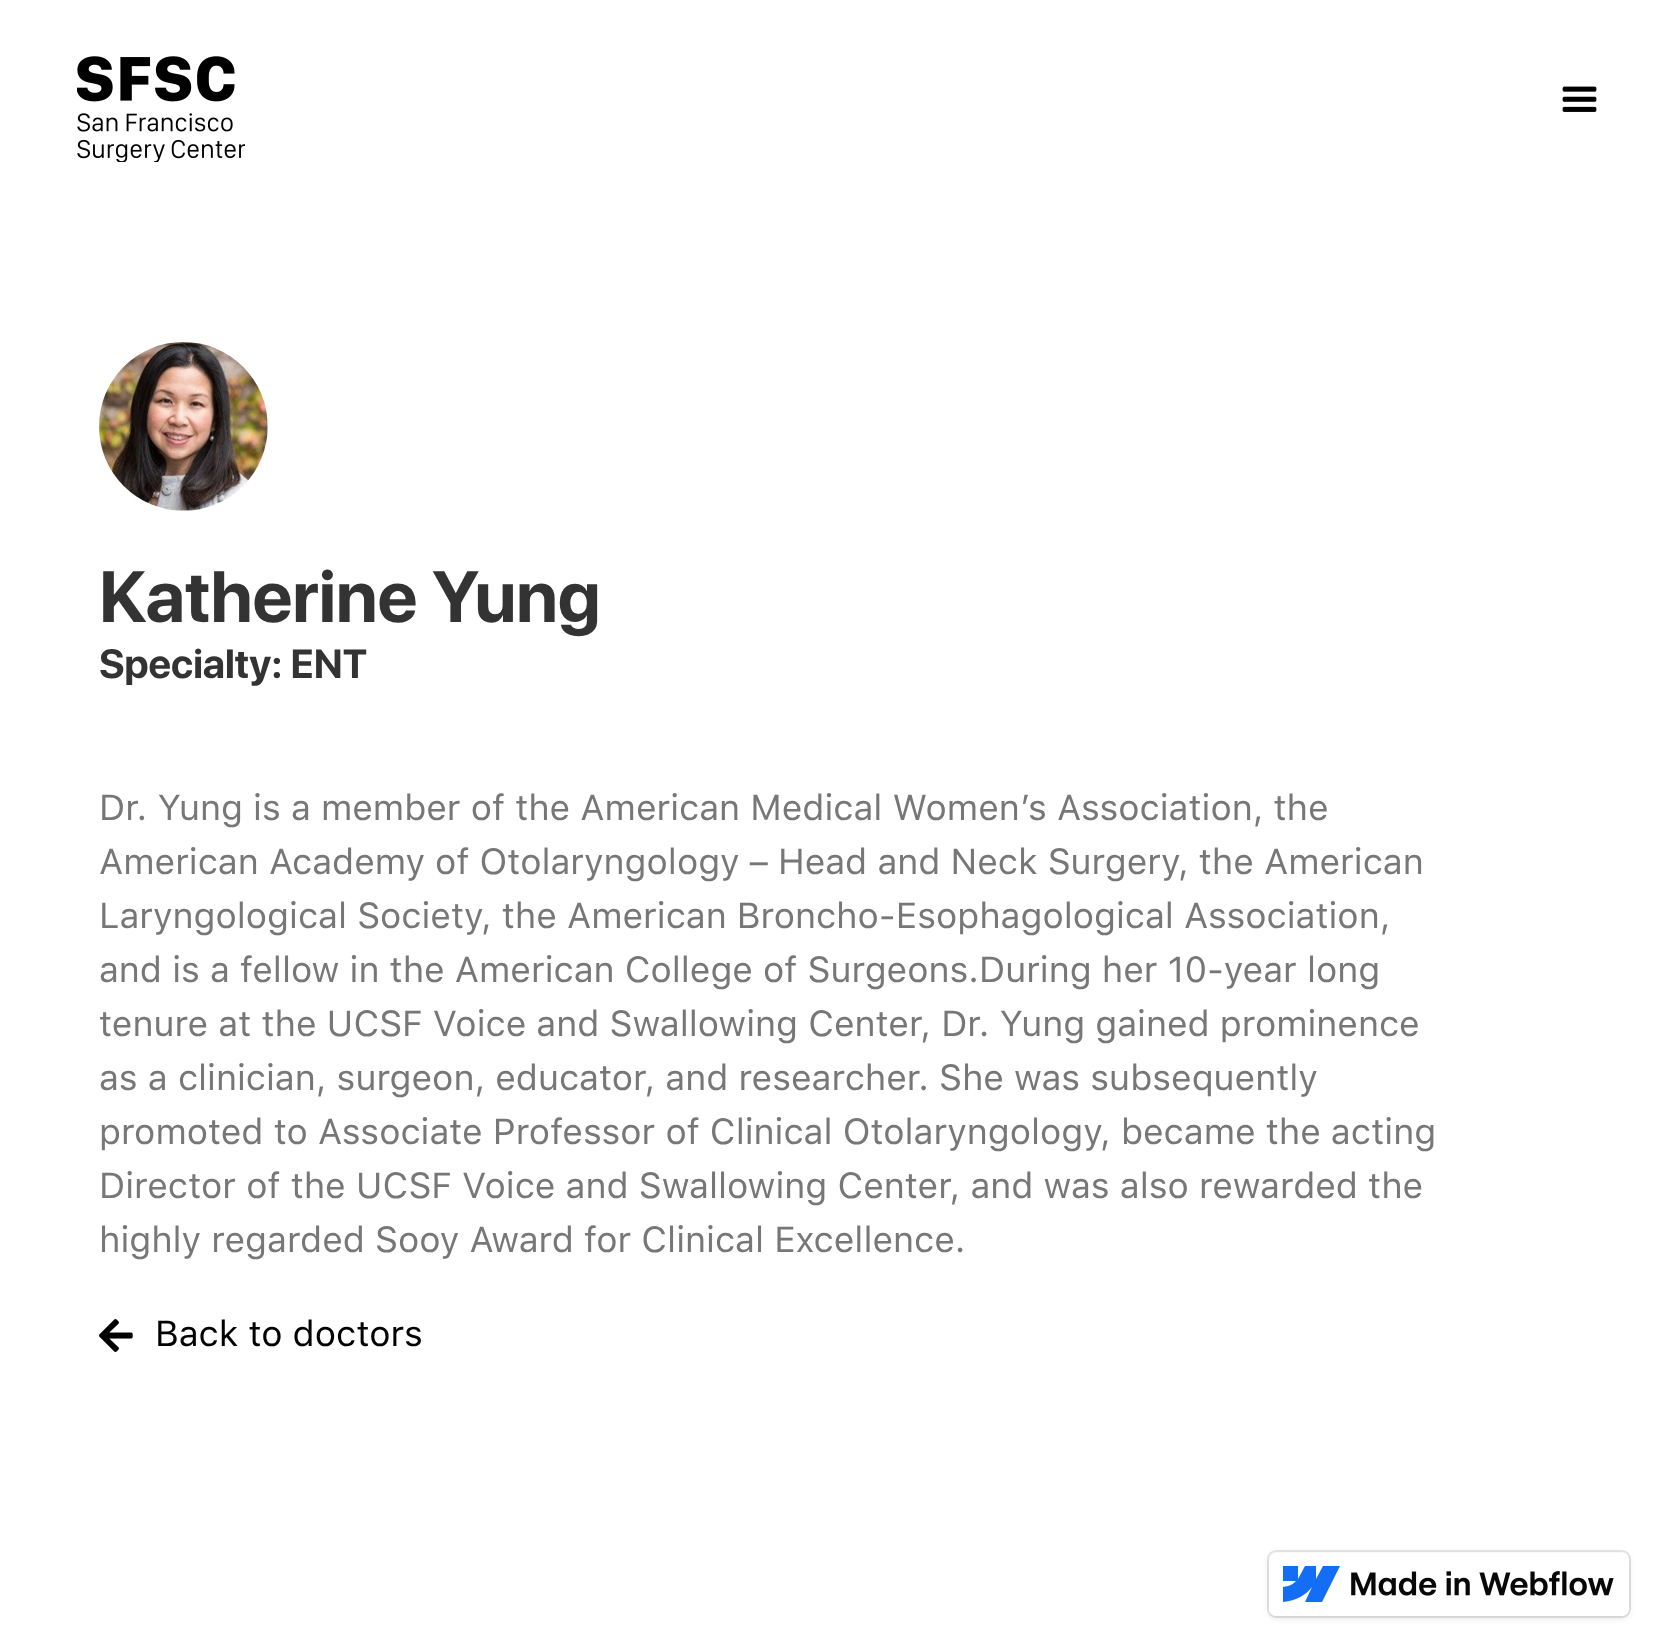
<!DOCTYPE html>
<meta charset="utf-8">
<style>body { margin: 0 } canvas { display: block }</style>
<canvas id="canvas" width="1656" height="1641"></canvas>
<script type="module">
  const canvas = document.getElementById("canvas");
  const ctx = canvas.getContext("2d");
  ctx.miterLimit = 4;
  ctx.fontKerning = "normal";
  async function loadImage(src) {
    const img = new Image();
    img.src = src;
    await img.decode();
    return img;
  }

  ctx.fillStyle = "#ffffff";
  ctx.fillRect(0, 0, 1656, 1641);
  ctx.drawImage(await loadImage("img1.png"), 77, 56, 168, 106);
  ctx.drawImage(await loadImage("img2.png"), 1562, 86, 35, 26);
  ctx.drawImage(await loadImage("img3.png"), 99, 342, 169, 169);
  ctx.font = "bold 72px SF Pro Display";
  ctx.fillStyle = "#333333";
  ctx.fillText("Katherine Yung", 99, 622);
  ctx.font = "bold 40.5px SF Pro Display";
  ctx.fillText("Specialty: ENT", 99, 678);
  ctx.font = "36px SF Pro Text";
  ctx.fillStyle = "#777777";
  ctx.fillText("Dr. Yung is a member of the American Medical Women’s Association, the", 99, 820);
  ctx.fillText("American Academy of Otolaryngology – Head and Neck Surgery, the American", 99, 874);
  ctx.fillText("Laryngological Society, the American Broncho-Esophagological Association,", 99, 928);
  ctx.fillText("and is a fellow in the American College of Surgeons.During her 10-year long", 99, 982);
  ctx.fillText("tenure at the UCSF Voice and Swallowing Center, Dr. Yung gained prominence", 99, 1036);
  ctx.fillText("as a clinician, surgeon, educator, and researcher. She was subsequently", 99, 1090);
  ctx.fillText("promoted to Associate Professor of Clinical Otolaryngology, became the acting", 99, 1144);
  ctx.fillText("Director of the UCSF Voice and Swallowing Center, and was also rewarded the", 99, 1198);
  ctx.fillText("highly regarded Sooy Award for Clinical Excellence.", 99, 1252);
  ctx.drawImage(await loadImage("img4.png"), 99, 1319, 34, 33);
  ctx.fillStyle = "#000000";
  ctx.fillText("Back to doctors", 155, 1346);
  ctx.fillStyle = "rgba(0, 0, 0, 0.1)";
  ctx.filter = "blur(3.5px)";
  ctx.beginPath();
  ctx.roundRect(1269, 1555, 360, 63, 7);
  ctx.fill();
  ctx.filter = "none";
  ctx.beginPath();
  ctx.roundRect(1268, 1551, 362, 66, 8);
  ctx.strokeStyle = "rgba(0, 0, 0, 0.1)";
  ctx.lineWidth = 2;
  ctx.stroke();
  ctx.fillStyle = "#ffffff";
  ctx.beginPath();
  ctx.roundRect(1269, 1553, 360, 63, 7);
  ctx.fill();
  ctx.save();
  ctx.beginPath();
  ctx.rect(1283, 1566, 58, 36);
  ctx.clip();
  ctx.fillStyle = "#146ef5";
  ctx.beginPath();
  ctx.moveTo(1340, 1566);
  ctx.lineTo(1322, 1602);
  ctx.lineTo(1305, 1602);
  ctx.lineTo(1312, 1587);
  ctx.bezierCurveTo(1306, 1595, 1296, 1601, 1282, 1602);
  ctx.lineTo(1282, 1587);
  ctx.bezierCurveTo(1282, 1587, 1291, 1587, 1296, 1581);
  ctx.lineTo(1282, 1581);
  ctx.lineTo(1282, 1566);
  ctx.lineTo(1298, 1566);
  ctx.lineTo(1298, 1579);
  ctx.lineTo(1305, 1566);
  ctx.lineTo(1316, 1566);
  ctx.lineTo(1316, 1579);
  ctx.lineTo(1323, 1566);
  ctx.closePath();
  ctx.fill("evenodd");
  ctx.restore();
  ctx.drawImage(await loadImage("img5.png"), 1351, 1571, 263, 25);
</script>
